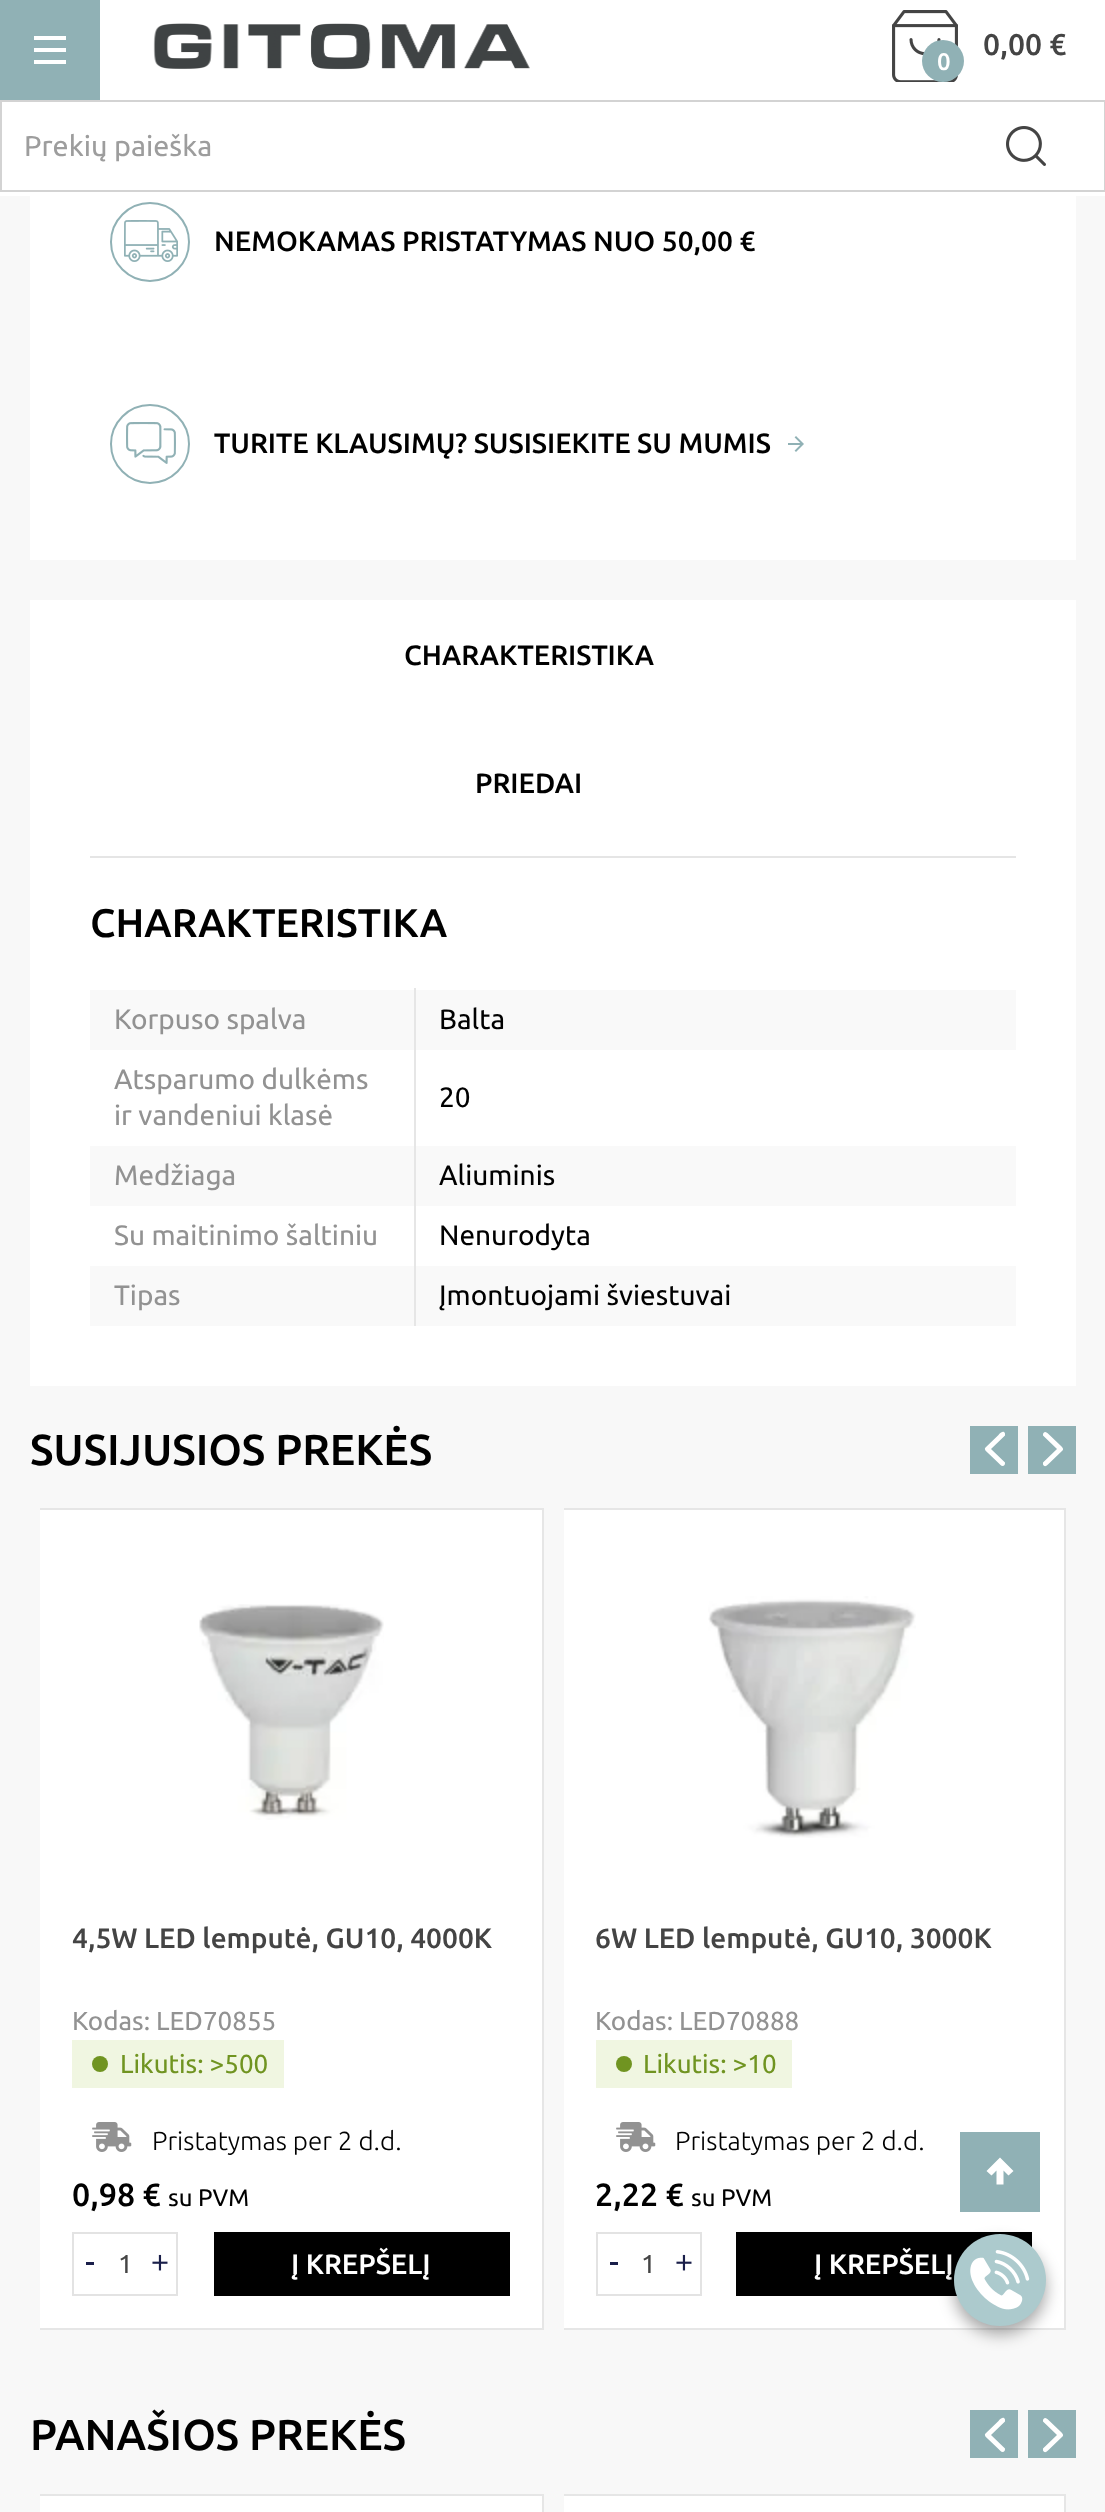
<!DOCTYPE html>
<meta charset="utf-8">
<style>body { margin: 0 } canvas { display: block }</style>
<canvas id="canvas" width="1105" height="2512"></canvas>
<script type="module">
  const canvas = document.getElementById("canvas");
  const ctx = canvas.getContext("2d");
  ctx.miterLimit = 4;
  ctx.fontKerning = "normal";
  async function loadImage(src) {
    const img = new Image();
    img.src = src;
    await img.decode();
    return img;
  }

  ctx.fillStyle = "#f8f8f8";
  ctx.fillRect(0, 0, 1105, 2512);
  ctx.fillStyle = "#ffffff";
  ctx.fillRect(0, 0, 1105, 196);
  ctx.fillStyle = "#90b1b5";
  ctx.fillRect(0, 0, 100, 100);
  ctx.fillStyle = "#ffffff";
  ctx.fillRect(34, 36, 32, 4);
  ctx.fillRect(34, 48, 32, 4);
  ctx.fillRect(34, 60, 32, 4);
  ctx.drawImage(await loadImage("img1.png"), 153, 23, 377, 47);
  ctx.drawImage(await loadImage("img2.png"), 892, 10, 66, 72);
  ctx.font = "500 30px Ubuntu";
  ctx.fillStyle = "#444444";
  ctx.fillText("0,00 €", 983, 55);
  ctx.fillStyle = "#90b1b5";
  ctx.beginPath();
  ctx.arc(943, 61, 21, 0, Math.PI * 2);
  ctx.fill();
  ctx.font = "500 24px Ubuntu";
  ctx.fillStyle = "#ffffff";
  ctx.fillText("0", 937, 70);
  ctx.strokeStyle = "#d3d3d3";
  ctx.lineWidth = 2;
  ctx.strokeRect(1, 101, 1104, 90);
  ctx.font = "28.75px Ubuntu";
  ctx.fillStyle = "#9d9d9d";
  ctx.fillText("Prekių paieška", 24, 156);
  ctx.drawImage(await loadImage("img3.png"), 1006, 126, 40, 40);
  ctx.fillStyle = "#ffffff";
  ctx.fillRect(30, 196, 1046, 364);
  ctx.beginPath();
  ctx.arc(150, 242, 39, 0, Math.PI * 2);
  ctx.strokeStyle = "#90b1b5";
  ctx.stroke();
  ctx.drawImage(await loadImage("img4.png"), 124, 220, 54, 42);
  ctx.font = "500 28px Ubuntu";
  ctx.fillStyle = "#000000";
  ctx.fillText("NEMOKAMAS PRISTATYMAS NUO 50,00 €", 214, 251);
  ctx.beginPath();
  ctx.arc(150, 444, 39, 0, Math.PI * 2);
  ctx.stroke();
  ctx.drawImage(await loadImage("img5.png"), 126, 422, 50, 42);
  ctx.fillText("TURITE KLAUSIMŲ? SUSISIEKITE SU MUMIS", 214, 453);
  ctx.drawImage(await loadImage("img6.png"), 788, 436, 16, 16);
  ctx.fillStyle = "#ffffff";
  ctx.fillRect(30, 600, 1046, 786);
  ctx.fillStyle = "#e5e5e5";
  ctx.fillRect(90, 856, 926, 2);
  ctx.fillStyle = "#000000";
  ctx.fillText("CHARAKTERISTIKA", 404, 665);
  ctx.fillText("PRIEDAI", 475, 793);
  ctx.font = "500 40px Ubuntu";
  ctx.fillText("CHARAKTERISTIKA", 90, 937);
  ctx.fillStyle = "#f9f9f9";
  ctx.fillRect(90, 990, 926, 60);
  ctx.font = "28px Ubuntu";
  ctx.fillStyle = "#929292";
  ctx.fillText("Korpuso spalva", 114, 1029);
  ctx.fillStyle = "#000000";
  ctx.fillText("Balta", 439, 1029);
  ctx.fillStyle = "#929292";
  ctx.fillText("Atsparumo dulkėms", 114, 1089);
  ctx.fillText("ir vandeniui klasė", 114, 1125);
  ctx.fillStyle = "#000000";
  ctx.fillText("20", 439, 1107);
  ctx.fillStyle = "#f9f9f9";
  ctx.fillRect(90, 1146, 926, 60);
  ctx.fillStyle = "#929292";
  ctx.fillText("Medžiaga", 114, 1185);
  ctx.fillStyle = "#000000";
  ctx.fillText("Aliuminis", 439, 1185);
  ctx.fillStyle = "#929292";
  ctx.fillText("Su maitinimo šaltiniu", 114, 1245);
  ctx.fillStyle = "#000000";
  ctx.fillText("Nenurodyta", 439, 1245);
  ctx.fillStyle = "#f9f9f9";
  ctx.fillRect(90, 1266, 926, 60);
  ctx.fillStyle = "#e6e6e6";
  ctx.fillRect(414, 988, 2, 338);
  ctx.fillStyle = "#929292";
  ctx.fillText("Tipas", 114, 1305);
  ctx.fillStyle = "#000000";
  ctx.fillText("Įmontuojami šviestuvai", 439, 1305);
  ctx.font = "500 43.25px Ubuntu";
  ctx.fillText("SUSIJUSIOS PREKĖS", 30, 1465);
  ctx.fillStyle = "#90b1b5";
  ctx.fillRect(970, 1426, 48, 48);
  ctx.fillStyle = "#ffffff";
  ctx.beginPath();
  ctx.moveTo(985.5, 1447.5);
  ctx.lineTo(998.5, 1435);
  ctx.bezierCurveTo(999.5, 1434, 1003, 1429.5, 1005, 1433.5);
  ctx.lineTo(1005, 1435.5);
  ctx.lineTo(991, 1449);
  ctx.lineTo(1005, 1462.5);
  ctx.bezierCurveTo(1005, 1463.5, 1005, 1464.5, 1004.5, 1465);
  ctx.bezierCurveTo(1002.5, 1468, 999.5, 1464, 998.5, 1463);
  ctx.lineTo(988, 1453);
  ctx.bezierCurveTo(987, 1452, 983.5, 1449.5, 985.5, 1447.5);
  ctx.closePath();
  ctx.fill();
  ctx.fillStyle = "#90b1b5";
  ctx.fillRect(1028, 1426, 48, 48);
  ctx.fillStyle = "#ffffff";
  ctx.beginPath();
  ctx.moveTo(1062.5, 1450.5);
  ctx.lineTo(1049.5, 1463);
  ctx.bezierCurveTo(1048.5, 1464, 1045, 1468.5, 1043, 1464.5);
  ctx.lineTo(1043, 1462.5);
  ctx.lineTo(1057, 1449);
  ctx.lineTo(1043, 1435.5);
  ctx.bezierCurveTo(1043, 1434.5, 1043, 1433.5, 1043.5, 1433);
  ctx.bezierCurveTo(1045.5, 1430, 1048.5, 1434, 1049.5, 1435);
  ctx.lineTo(1060, 1445);
  ctx.bezierCurveTo(1061, 1446, 1064.5, 1448.5, 1062.5, 1450.5);
  ctx.closePath();
  ctx.fill();
  ctx.fillRect(40, 1510, 502, 818);
  ctx.fillStyle = "#e6e6e6";
  ctx.fillRect(40, 1508, 504, 2);
  ctx.fillRect(542, 1508, 2, 822);
  ctx.fillRect(40, 2328, 504, 2);
  ctx.drawImage(await loadImage("img7.png"), 199, 1604, 185, 216);
  ctx.font = "500 28px Ubuntu";
  ctx.fillStyle = "#444444";
  ctx.fillText("4,5W LED lemputė, GU10, 4000K", 72, 1948);
  ctx.font = "26px Ubuntu";
  ctx.fillStyle = "#929292";
  ctx.fillText("Kodas: LED70855", 72, 2030);
  ctx.fillStyle = "#f0f6e1";
  ctx.fillRect(72, 2040, 212, 48);
  ctx.fillStyle = "#709421";
  ctx.beginPath();
  ctx.arc(100, 2064, 8, 0, Math.PI * 2);
  ctx.fill();
  ctx.fillText("Likutis: >500", 120, 2073);
  ctx.drawImage(await loadImage("img8.png"), 92, 2122, 40, 30);
  ctx.font = "300 26px Ubuntu";
  ctx.fillStyle = "#000000";
  ctx.fillText("Pristatymas per 2 d.d.", 152, 2150);
  ctx.font = "500 32px Ubuntu";
  ctx.fillText("0,98 €", 72, 2206);
  ctx.font = "24px Ubuntu";
  ctx.fillText("su PVM", 168, 2206);
  ctx.strokeStyle = "#e3e3e3";
  ctx.strokeRect(73, 2233, 104, 62);
  ctx.fillStyle = "#1a1f4a";
  ctx.fillRect(86, 2262, 8, 3);
  ctx.font = "26px Ubuntu";
  ctx.fillStyle = "#444444";
  ctx.fillText("1", 118, 2273);
  ctx.drawImage(await loadImage("img9.png"), 152, 2254, 16, 17);
  ctx.fillStyle = "#000000";
  ctx.fillRect(214, 2232, 296, 64);
  ctx.font = "500 28px Ubuntu";
  ctx.fillStyle = "#ffffff";
  ctx.fillText("Į KREPŠELĮ", 291, 2274);
  ctx.fillRect(564, 1510, 500, 818);
  ctx.fillStyle = "#e6e6e6";
  ctx.fillRect(564, 1508, 502, 2);
  ctx.fillRect(1064, 1508, 2, 822);
  ctx.fillRect(564, 2328, 502, 2);
  ctx.drawImage(await loadImage("img10.png"), 708, 1596, 208, 242);
  ctx.fillStyle = "#444444";
  ctx.fillText("6W LED lemputė, GU10, 3000K", 595, 1948);
  ctx.font = "26px Ubuntu";
  ctx.fillStyle = "#929292";
  ctx.fillText("Kodas: LED70888", 595, 2030);
  ctx.fillStyle = "#f0f6e1";
  ctx.fillRect(596, 2040, 196, 48);
  ctx.fillStyle = "#709421";
  ctx.beginPath();
  ctx.arc(624, 2064, 8, 0, Math.PI * 2);
  ctx.fill();
  ctx.fillText("Likutis: >10", 643, 2073);
  ctx.drawImage(await loadImage("img8.png"), 616, 2122, 40, 30);
  ctx.font = "300 26px Ubuntu";
  ctx.fillStyle = "#000000";
  ctx.fillText("Pristatymas per 2 d.d.", 675, 2150);
  ctx.font = "500 32px Ubuntu";
  ctx.fillText("2,22 €", 595, 2206);
  ctx.font = "24px Ubuntu";
  ctx.fillText("su PVM", 691, 2206);
  ctx.strokeRect(597, 2233, 104, 62);
  ctx.fillStyle = "#1a1f4a";
  ctx.fillRect(610, 2262, 8, 3);
  ctx.font = "26px Ubuntu";
  ctx.fillStyle = "#444444";
  ctx.fillText("1", 641, 2273);
  ctx.drawImage(await loadImage("img9.png"), 676, 2254, 16, 17);
  ctx.fillStyle = "#000000";
  ctx.fillRect(736, 2232, 296, 64);
  ctx.font = "500 28px Ubuntu";
  ctx.fillStyle = "#ffffff";
  ctx.fillText("Į KREPŠELĮ", 814, 2274);
  ctx.font = "500 43.25px Ubuntu";
  ctx.fillStyle = "#000000";
  ctx.fillText("PANAŠIOS PREKĖS", 30, 2450);
  ctx.fillStyle = "#90b1b5";
  ctx.fillRect(970, 2410, 48, 48);
  ctx.fillStyle = "#ffffff";
  ctx.beginPath();
  ctx.moveTo(985.5, 2433.5);
  ctx.lineTo(998.5, 2421);
  ctx.bezierCurveTo(999.5, 2420, 1003, 2415.5, 1005, 2419.5);
  ctx.lineTo(1005, 2421.5);
  ctx.lineTo(991, 2435);
  ctx.lineTo(1005, 2448.5);
  ctx.bezierCurveTo(1005, 2449.5, 1005, 2450.5, 1004.5, 2451);
  ctx.bezierCurveTo(1002.5, 2454, 999.5, 2450, 998.5, 2449);
  ctx.lineTo(988, 2439);
  ctx.bezierCurveTo(987, 2438, 983.5, 2435.5, 985.5, 2433.5);
  ctx.closePath();
  ctx.fill();
  ctx.fillStyle = "#90b1b5";
  ctx.fillRect(1028, 2410, 48, 48);
  ctx.fillStyle = "#ffffff";
  ctx.beginPath();
  ctx.moveTo(1062.5, 2436.5);
  ctx.lineTo(1049.5, 2449);
  ctx.bezierCurveTo(1048.5, 2450, 1045, 2454.5, 1043, 2450.5);
  ctx.lineTo(1043, 2448.5);
  ctx.lineTo(1057, 2435);
  ctx.lineTo(1043, 2421.5);
  ctx.bezierCurveTo(1043, 2420.5, 1043, 2419.5, 1043.5, 2419);
  ctx.bezierCurveTo(1045.5, 2416, 1048.5, 2420, 1049.5, 2421);
  ctx.lineTo(1060, 2431);
  ctx.bezierCurveTo(1061, 2432, 1064.5, 2434.5, 1062.5, 2436.5);
  ctx.closePath();
  ctx.fill();
  ctx.fillRect(40, 2496, 502, 16);
  ctx.fillStyle = "#e6e6e6";
  ctx.fillRect(40, 2494, 504, 2);
  ctx.fillRect(542, 2494, 2, 18);
  ctx.fillStyle = "#ffffff";
  ctx.fillRect(564, 2496, 500, 16);
  ctx.fillStyle = "#e6e6e6";
  ctx.fillRect(564, 2494, 502, 2);
  ctx.fillRect(1064, 2494, 2, 18);
  ctx.fillStyle = "#90b1b5";
  ctx.fillRect(960, 2132, 80, 80);
  ctx.fillStyle = "#ffffff";
  ctx.beginPath();
  ctx.moveTo(986.5, 2171);
  ctx.lineTo(1000, 2157.5);
  ctx.lineTo(1013.5, 2171);
  ctx.lineTo(1008.5, 2175.5);
  ctx.lineTo(1003.5, 2170.5);
  ctx.lineTo(1003.5, 2184.5);
  ctx.lineTo(996.5, 2184.5);
  ctx.lineTo(996.5, 2170.5);
  ctx.lineTo(991.5, 2175.5);
  ctx.closePath();
  ctx.fill();
  ctx.fillStyle = "rgba(0, 0, 0, 0.35)";
  ctx.filter = "blur(8px)";
  ctx.beginPath();
  ctx.roundRect(954, 2242, 92, 92, 46);
  ctx.fill();
  ctx.filter = "none";
  ctx.fillStyle = "#accacd";
  ctx.beginPath();
  ctx.arc(1000, 2280, 46, 0, Math.PI * 2);
  ctx.fill();
  ctx.drawImage(await loadImage("img11.png"), 970, 2250, 60, 60);
</script>
